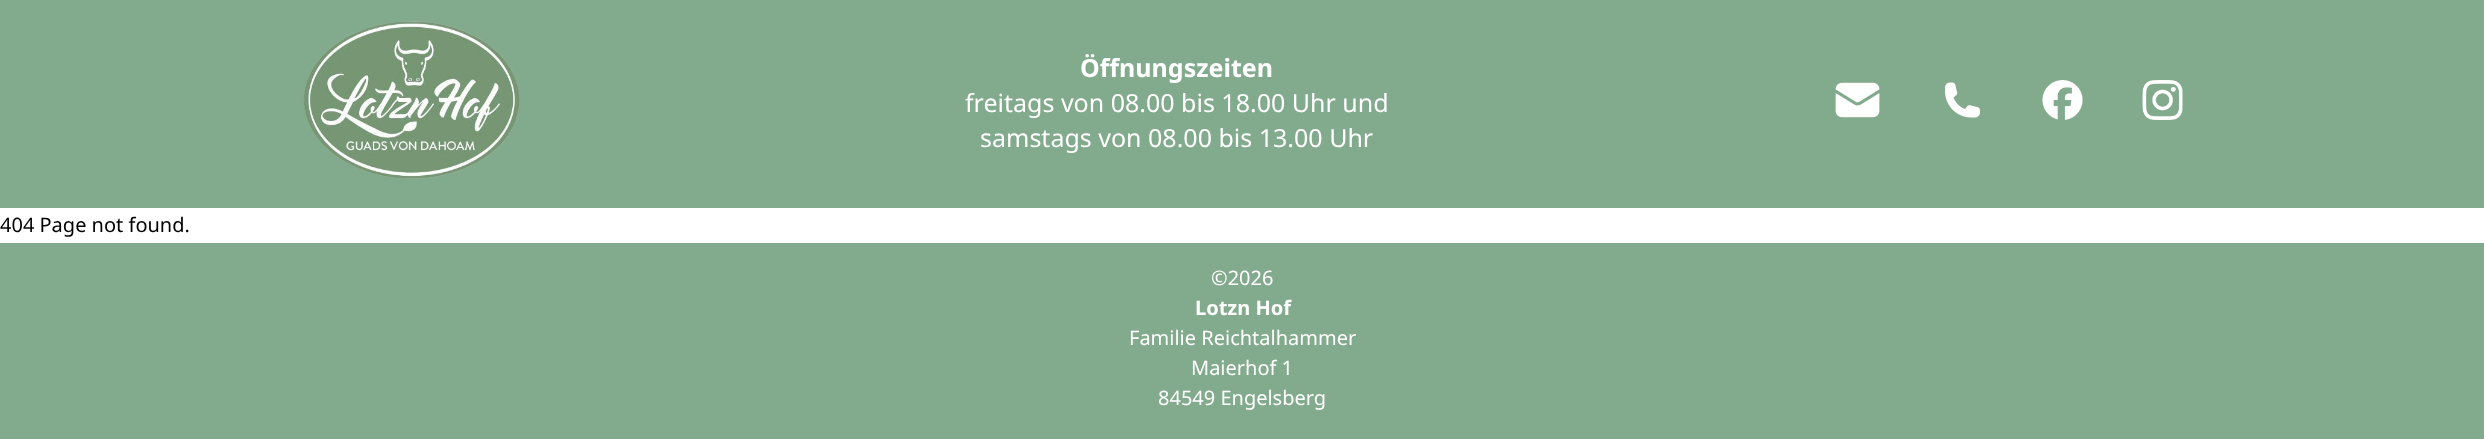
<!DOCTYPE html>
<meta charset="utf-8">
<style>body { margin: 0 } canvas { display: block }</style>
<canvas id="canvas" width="2484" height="439"></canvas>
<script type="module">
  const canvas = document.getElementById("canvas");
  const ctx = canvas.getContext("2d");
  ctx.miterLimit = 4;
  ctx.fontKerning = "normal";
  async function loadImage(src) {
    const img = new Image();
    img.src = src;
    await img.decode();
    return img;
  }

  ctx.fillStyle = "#82aa8c";
  ctx.fillRect(0, 0, 2484, 439);
  ctx.drawImage(await loadImage("img1.png"), 303, 20, 217, 159);
  ctx.font = "bold 25px Noto Sans";
  ctx.fillStyle = "#ffffff";
  ctx.fillText("Öffnungszeiten", 1080, 77);
  ctx.font = "25px Noto Sans";
  ctx.fillText("freitags von 08.00 bis 18.00 Uhr und", 965, 112);
  ctx.fillText("samstags von 08.00 bis 13.00 Uhr", 980, 147);
  ctx.drawImage(await loadImage("img2.png"), 1835, 82, 45, 36);
  ctx.drawImage(await loadImage("img3.png"), 1945, 82, 35, 36);
  ctx.drawImage(await loadImage("img4.png"), 2042, 80, 41, 40);
  ctx.drawImage(await loadImage("img5.png"), 2142, 80, 41, 40);
  ctx.fillRect(0, 208, 2484, 35);
  ctx.font = "20px Noto Sans";
  ctx.fillStyle = "#000000";
  ctx.fillText("404 Page not found.", 0, 232);
  ctx.fillStyle = "#ffffff";
  ctx.fillText("©2026", 1211, 285);
  ctx.font = "bold 20px Noto Sans";
  ctx.fillText("Lotzn Hof", 1195, 315);
  ctx.font = "20px Noto Sans";
  ctx.fillText("Familie Reichtalhammer", 1129, 345);
  ctx.fillText("Maierhof 1", 1191, 375);
  ctx.fillText("84549 Engelsberg", 1158, 405);
</script>
